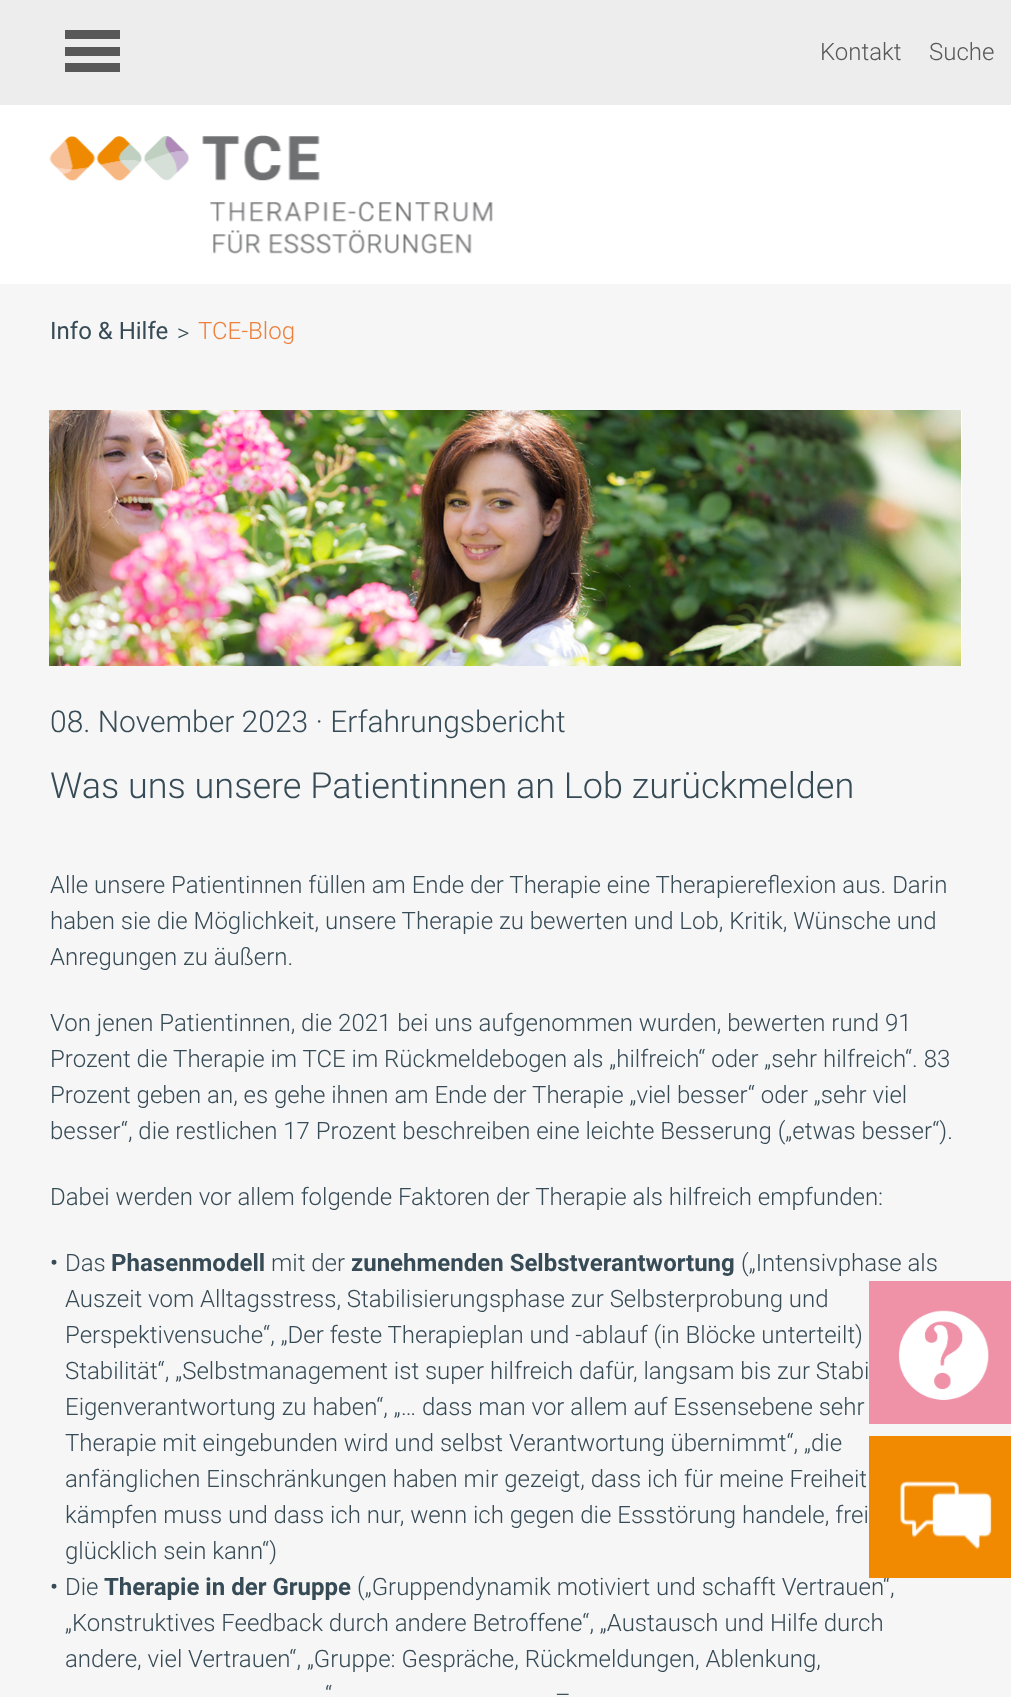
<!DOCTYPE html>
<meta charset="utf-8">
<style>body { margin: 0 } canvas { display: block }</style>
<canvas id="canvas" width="1011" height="1697"></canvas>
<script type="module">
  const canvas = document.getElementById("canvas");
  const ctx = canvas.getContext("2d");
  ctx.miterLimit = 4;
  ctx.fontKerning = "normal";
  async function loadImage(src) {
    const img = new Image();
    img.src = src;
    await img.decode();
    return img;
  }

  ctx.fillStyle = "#f6f6f6";
  ctx.fillRect(0, 0, 1011, 1697);
  ctx.fillStyle = "#ededed";
  ctx.fillRect(0, 0, 1011, 105);
  ctx.fillStyle = "#585859";
  ctx.fillRect(65, 63, 55, 9);
  ctx.fillRect(65, 30, 55, 9);
  ctx.fillRect(65, 47, 55, 9);
  ctx.font = "300 24px Roboto";
  ctx.fillText("Kontakt", 820, 60);
  ctx.fillText("Suche", 929, 60);
  ctx.fillStyle = "#ffffff";
  ctx.fillRect(0, 105, 1011, 179);
  ctx.drawImage(await loadImage("img1.png"), 49, 135, 444, 119);
  ctx.font = "24px Roboto";
  ctx.fillStyle = "#374b56";
  ctx.fillText("Info & Hilfe", 50, 339);
  ctx.font = "300 24px Roboto";
  ctx.fillText(">", 177, 341);
  ctx.fillStyle = "#ee803c";
  ctx.fillText("TCE-Blog", 198, 339);
  ctx.fillStyle = "#ffffff";
  ctx.fillRect(961, 410, 1, 256);
  ctx.drawImage(await loadImage("img2.png"), 49, 410, 912, 256);
  ctx.font = "300 30px Roboto";
  ctx.fillStyle = "#374b56";
  ctx.fillText("08. November 2023 · Erfahrungsbericht", 50, 732);
  ctx.font = "300 36px Roboto";
  ctx.fillText("Was uns unsere Patientinnen an Lob zurückmelden", 50, 798);
  ctx.font = "300 24px Roboto";
  ctx.fillText("Alle unsere Patientinnen füllen am Ende der Therapie eine Therapiereflexion aus. Darin", 50, 893);
  ctx.fillText("haben sie die Möglichkeit, unsere Therapie zu bewerten und Lob, Kritik, Wünsche und", 50, 929);
  ctx.fillText("Anregungen zu äußern.", 50, 965);
  ctx.fillText("Von jenen Patientinnen, die 2021 bei uns aufgenommen wurden, bewerten rund 91", 50, 1031);
  ctx.fillText("Prozent die Therapie im TCE im Rückmeldebogen als „hilfreich“ oder „sehr hilfreich“. 83", 50, 1067);
  ctx.fillText("Prozent geben an, es gehe ihnen am Ende der Therapie „viel besser“ oder „sehr viel", 50, 1103);
  ctx.fillText("besser“, die restlichen 17 Prozent beschreiben eine leichte Besserung („etwas besser“).", 50, 1139);
  ctx.fillText("Dabei werden vor allem folgende Faktoren der Therapie als hilfreich empfunden:", 50, 1205);
  ctx.font = "24px Roboto";
  ctx.fillText("•", 50, 1271);
  ctx.font = "300 24px Roboto";
  ctx.fillText("Das", 65, 1271);
  ctx.font = "bold 24px Roboto";
  ctx.fillText("Phasenmodell", 111, 1271);
  ctx.font = "300 24px Roboto";
  ctx.fillText("mit der", 271, 1271);
  ctx.font = "bold 24px Roboto";
  ctx.fillText("zunehmenden Selbstverantwortung", 351, 1271);
  ctx.font = "300 24px Roboto";
  ctx.fillText("(„Intensivphase als", 741, 1271);
  ctx.fillText("Auszeit vom Alltagsstress, Stabilisierungsphase zur Selbsterprobung und", 65, 1307);
  ctx.fillText("Perspektivensuche“, „Der feste Therapieplan und -ablauf (in Blöcke unterteilt)", 65, 1343);
  ctx.fillText("Stabilität“, „Selbstmanagement ist super hilfreich dafür, langsam bis zur Stabi", 65, 1379);
  ctx.fillText("Eigenverantwortung zu haben“, „… dass man vor allem auf Essensebene sehr", 65, 1415);
  ctx.fillText("Therapie mit eingebunden wird und selbst Verantwortung übernimmt“, „die", 65, 1451);
  ctx.fillText("anfänglichen Einschränkungen haben mir gezeigt, dass ich für meine Freiheit", 65, 1487);
  ctx.fillText("kämpfen muss und dass ich nur, wenn ich gegen die Essstörung handele, frei", 65, 1523);
  ctx.fillText("glücklich sein kann“)", 65, 1559);
  ctx.font = "24px Roboto";
  ctx.fillText("•", 50, 1595);
  ctx.font = "300 24px Roboto";
  ctx.fillText("Die", 65, 1595);
  ctx.font = "bold 24px Roboto";
  ctx.fillText("Therapie in der Gruppe", 104, 1595);
  ctx.font = "300 24px Roboto";
  ctx.fillText("(„Gruppendynamik motiviert und schafft Vertrauen“,", 357, 1595);
  ctx.fillText("„Konstruktives Feedback durch andere Betroffene“, „Austausch und Hilfe durch", 65, 1631);
  ctx.fillText("andere, viel Vertrauen“, „Gruppe: Gespräche, Rückmeldungen, Ablenkung,", 65, 1667);
  ctx.fillText("“", 325, 1703);
  ctx.fillText("–", 555, 1703);
  ctx.fillStyle = "#ef92a7";
  ctx.fillRect(869, 1281, 142, 143);
  ctx.drawImage(await loadImage("img3.png"), 898, 1310, 91, 90);
  ctx.fillStyle = "#f18a00";
  ctx.fillRect(869, 1436, 142, 142);
  ctx.drawImage(await loadImage("img4.png"), 900, 1481, 92, 69);
</script>
